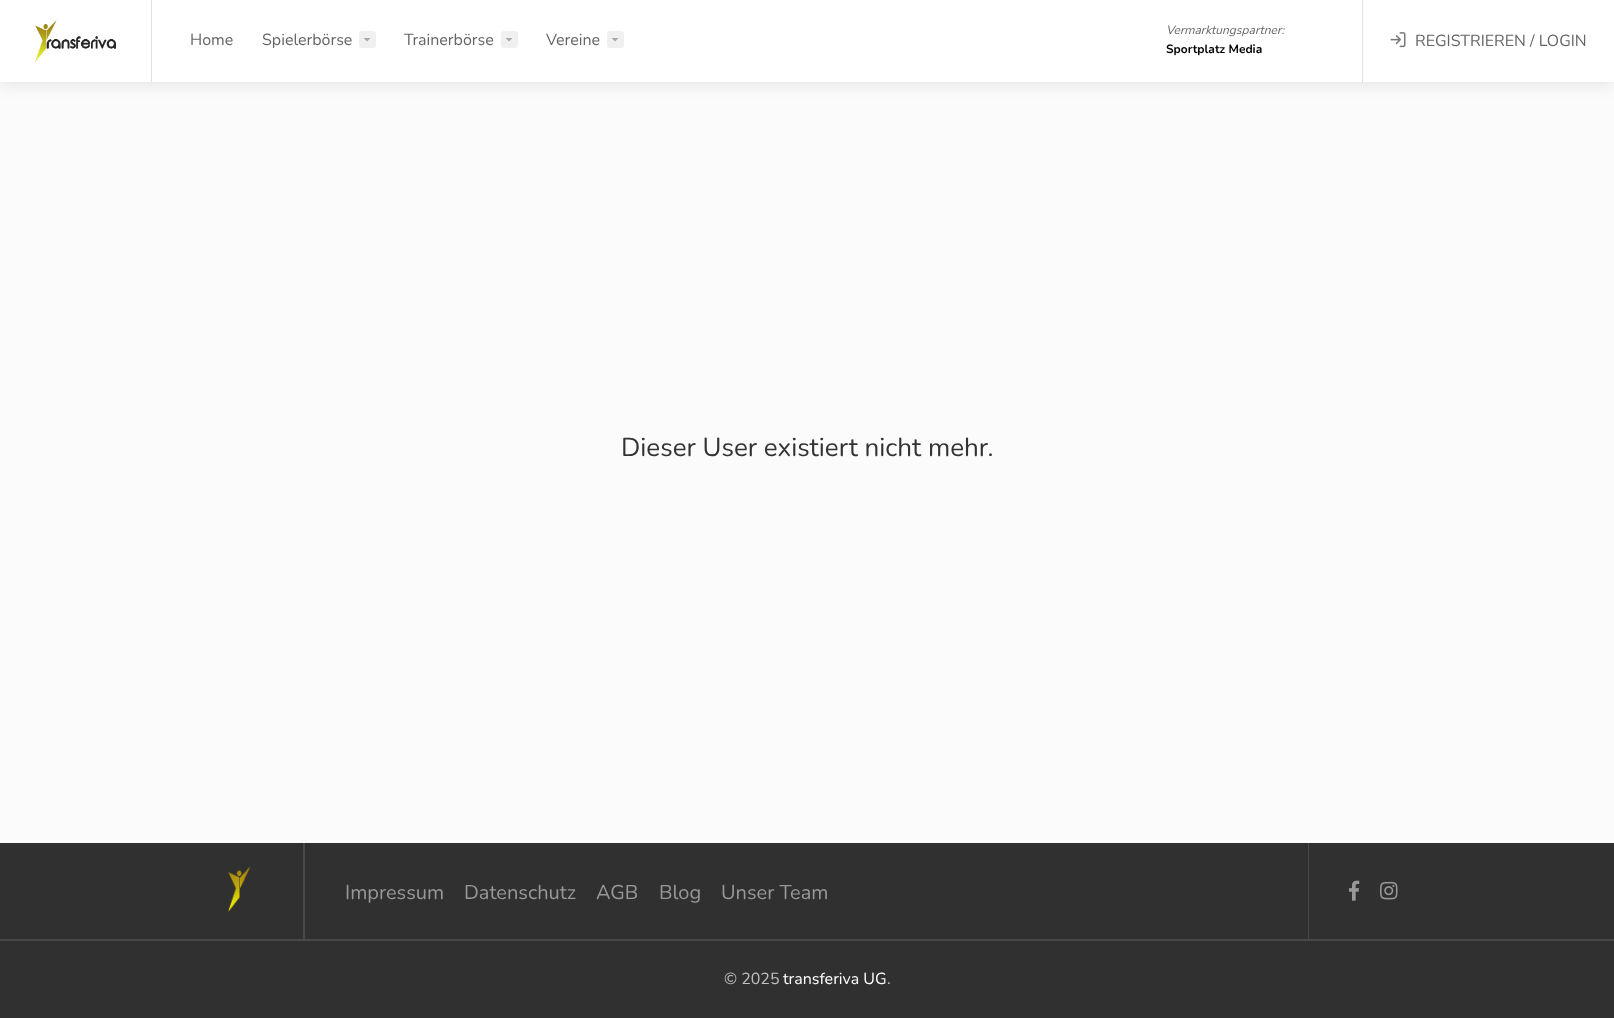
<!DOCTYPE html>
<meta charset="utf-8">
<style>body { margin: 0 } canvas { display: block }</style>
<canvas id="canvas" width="1614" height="1018"></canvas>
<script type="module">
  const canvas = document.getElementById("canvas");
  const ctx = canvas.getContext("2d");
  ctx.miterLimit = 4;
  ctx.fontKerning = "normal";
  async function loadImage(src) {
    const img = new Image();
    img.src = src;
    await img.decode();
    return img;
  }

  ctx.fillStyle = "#fbfbfb";
  ctx.fillRect(0, 0, 1614, 1018);
  ctx.fillStyle = "rgba(0, 0, 0, 0.12)";
  ctx.filter = "blur(9px)";
  ctx.beginPath();
  ctx.rect(0, 0, 1614, 82);
  ctx.fill();
  ctx.filter = "none";
  ctx.fillStyle = "#ffffff";
  ctx.fillRect(0, 0, 1614, 82);
  ctx.fillStyle = "#e0e0e0";
  ctx.fillRect(151, 0, 1, 82);
  ctx.drawImage(await loadImage("img1.png"), 35, 20, 81, 42);
  ctx.font = "16px Nunito";
  ctx.fillStyle = "#666666";
  ctx.fillText("Home", 190, 45);
  ctx.fillText("Spielerbörse", 262, 45);
  ctx.fillStyle = "#f0f0f0";
  ctx.beginPath();
  ctx.roundRect(359, 31, 17, 17, 3);
  ctx.fill();
  ctx.fillStyle = "#a8a8a8";
  ctx.beginPath();
  ctx.moveTo(363.5, 38);
  ctx.lineTo(367, 41.5);
  ctx.lineTo(370.5, 38);
  ctx.closePath();
  ctx.fill();
  ctx.fillStyle = "#666666";
  ctx.fillText("Trainerbörse", 404, 45);
  ctx.fillStyle = "#f0f0f0";
  ctx.beginPath();
  ctx.roundRect(501, 31, 17, 17, 3);
  ctx.fill();
  ctx.fillStyle = "#a8a8a8";
  ctx.beginPath();
  ctx.moveTo(505.5, 38);
  ctx.lineTo(509, 41.5);
  ctx.lineTo(512.5, 38);
  ctx.closePath();
  ctx.fill();
  ctx.fillStyle = "#666666";
  ctx.fillText("Vereine", 546, 45);
  ctx.fillStyle = "#f0f0f0";
  ctx.beginPath();
  ctx.roundRect(607, 31, 17, 17, 3);
  ctx.fill();
  ctx.fillStyle = "#a8a8a8";
  ctx.beginPath();
  ctx.moveTo(611.5, 38);
  ctx.lineTo(615, 41.5);
  ctx.lineTo(618.5, 38);
  ctx.closePath();
  ctx.fill();
  ctx.font = "italic 12px Nunito";
  ctx.fillStyle = "#666666";
  ctx.fillText("Vermarktungspartner:", 1166, 34);
  ctx.font = "bold 12px Nunito";
  ctx.fillStyle = "#000000";
  ctx.fillText("Sportplatz Media", 1166, 53);
  ctx.fillStyle = "#e0e0e0";
  ctx.fillRect(1362, 0, 1, 82);
  ctx.drawImage(await loadImage("img2.png"), 1390, 32, 16, 16);
  ctx.font = "16px Nunito";
  ctx.fillStyle = "#666666";
  ctx.fillText("REGISTRIEREN / LOGIN", 1415, 46);
  ctx.font = "26px Nunito";
  ctx.fillStyle = "#333333";
  ctx.fillText("Dieser User existiert nicht mehr.", 621, 456);
  ctx.fillStyle = "#303030";
  ctx.fillRect(0, 843, 1614, 175);
  ctx.fillStyle = "#484848";
  ctx.fillRect(0, 939, 1614, 2);
  ctx.fillRect(303, 843, 2, 96);
  ctx.drawImage(await loadImage("img3.png"), 228, 866, 23, 46);
  ctx.font = "20px Nunito";
  ctx.fillStyle = "#989898";
  ctx.fillText("Impressum", 345, 899);
  ctx.fillText("Datenschutz", 464, 899);
  ctx.fillText("AGB", 596, 899);
  ctx.fillText("Blog", 659, 899);
  ctx.fillText("Unser Team", 721, 899);
  ctx.fillStyle = "#484848";
  ctx.fillRect(1308, 843, 1, 96);
  ctx.drawImage(await loadImage("img4.png"), 1349, 880, 11, 21);
  ctx.drawImage(await loadImage("img5.png"), 1380, 881, 18, 19);
  ctx.font = "16px Nunito";
  ctx.fillStyle = "#c0c0c0";
  ctx.fillText("© 2025", 724, 984);
  ctx.fillStyle = "#ffffff";
  ctx.fillText("transferiva UG", 783, 984);
  ctx.fillStyle = "#c0c0c0";
  ctx.fillText(".", 887, 984);
</script>
